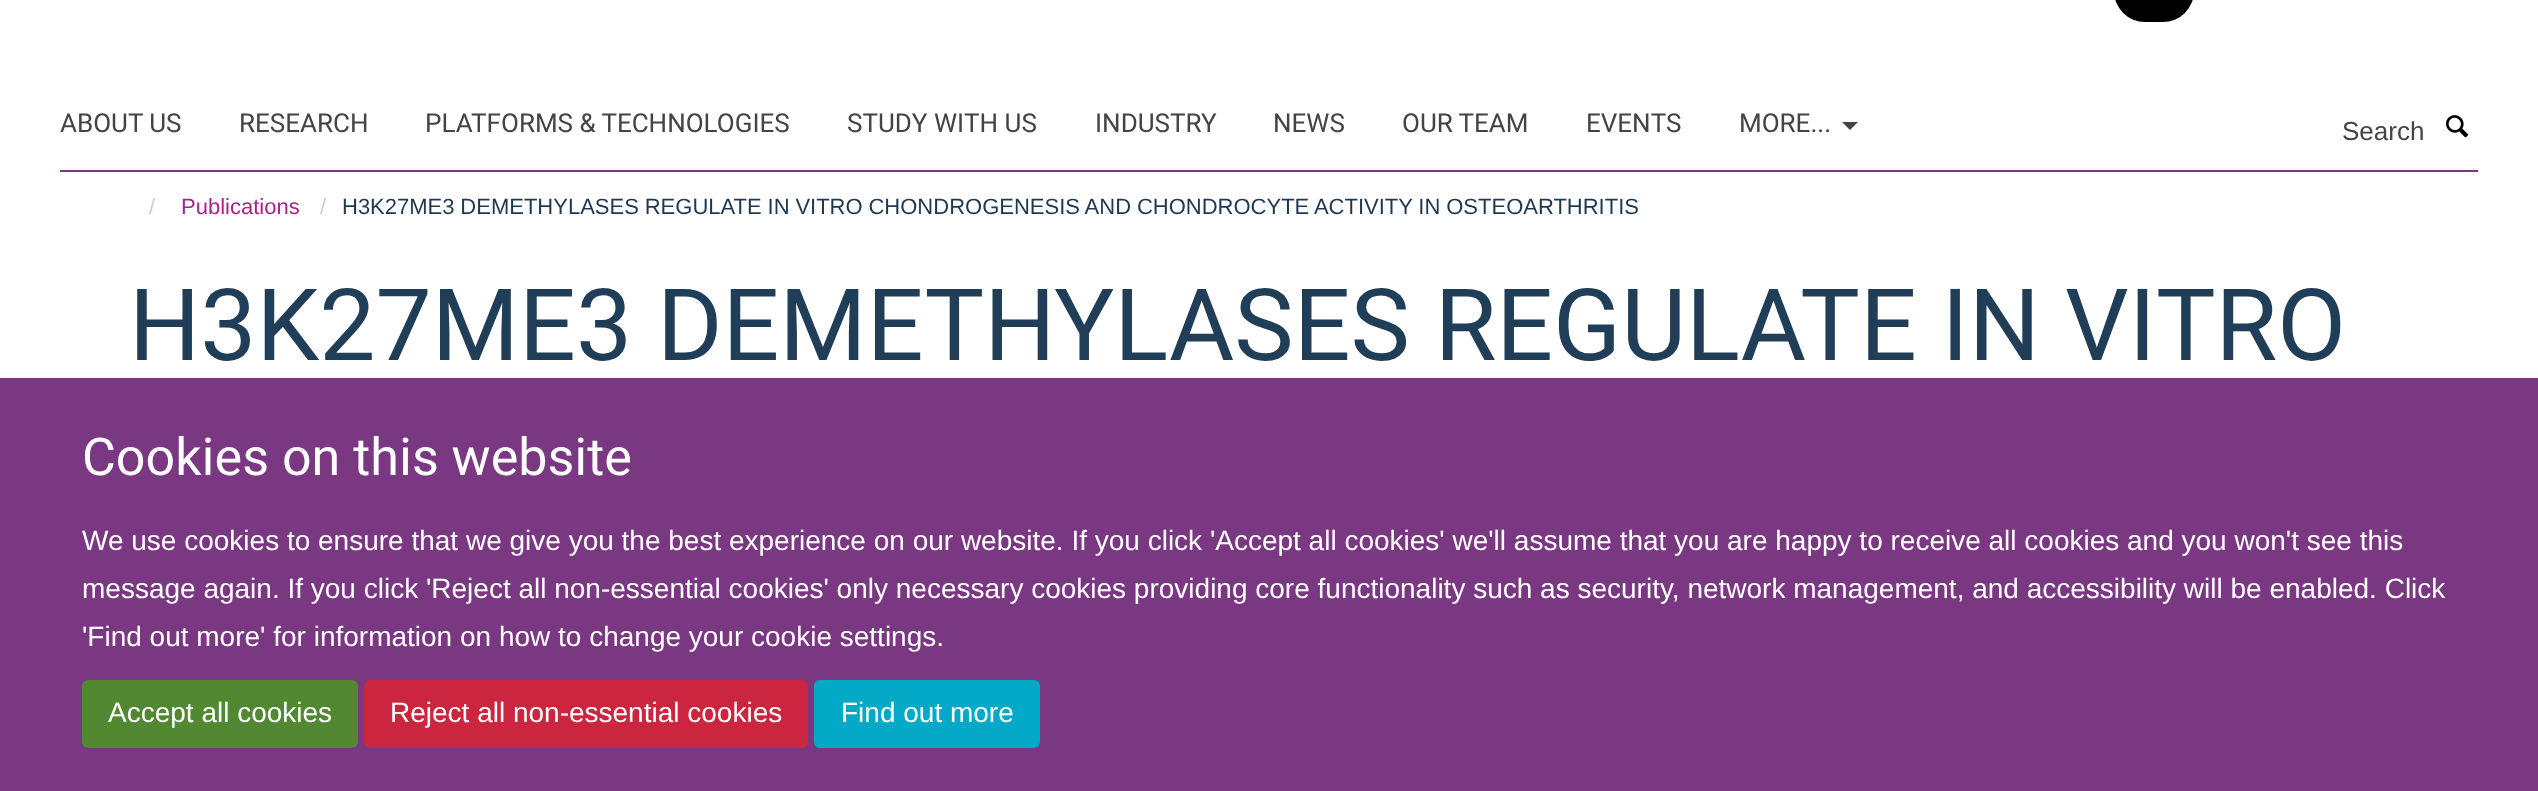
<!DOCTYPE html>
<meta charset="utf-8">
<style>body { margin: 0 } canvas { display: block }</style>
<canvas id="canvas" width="2538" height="791"></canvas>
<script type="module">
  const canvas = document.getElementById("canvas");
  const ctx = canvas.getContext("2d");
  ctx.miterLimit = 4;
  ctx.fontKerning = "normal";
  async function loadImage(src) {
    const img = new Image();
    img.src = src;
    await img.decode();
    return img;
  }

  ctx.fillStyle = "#ffffff";
  ctx.fillRect(0, 0, 2538, 791);
  ctx.fillStyle = "#000000";
  ctx.beginPath();
  ctx.roundRect(2114, -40, 80, 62, 40);
  ctx.fill();
  ctx.fillStyle = "#7a3782";
  ctx.fillRect(60, 170, 2418, 2);
  ctx.font = "26px Heebo";
  ctx.fillStyle = "#444444";
  ctx.fillText("ABOUT US", 60, 132);
  ctx.fillText("RESEARCH", 239, 132);
  ctx.fillText("PLATFORMS & TECHNOLOGIES", 425, 132);
  ctx.fillText("STUDY WITH US", 847, 132);
  ctx.fillText("INDUSTRY", 1095, 132);
  ctx.fillText("NEWS", 1273, 132);
  ctx.fillText("OUR TEAM", 1402, 132);
  ctx.fillText("EVENTS", 1586, 132);
  ctx.fillText("MORE...", 1739, 132);
  ctx.beginPath();
  ctx.moveTo(1842, 122);
  ctx.lineTo(1858, 122);
  ctx.lineTo(1850, 130);
  ctx.closePath();
  ctx.fill();
  ctx.font = "26px Liberation Sans";
  ctx.fillText("Search", 2342, 140);
  ctx.drawImage(await loadImage("img1.png"), 2446, 115, 23, 23);
  ctx.font = "22px Liberation Sans";
  ctx.fillStyle = "#cccccc";
  ctx.fillText("/", 149, 214);
  ctx.fillStyle = "#a8228b";
  ctx.fillText("Publications", 181, 214);
  ctx.fillStyle = "#cccccc";
  ctx.fillText("/", 320, 214);
  ctx.wordSpacing = "-0.25px";
  ctx.fillStyle = "#1d3850";
  ctx.fillText("H3K27ME3 DEMETHYLASES REGULATE IN VITRO CHONDROGENESIS AND CHONDROCYTE ACTIVITY IN OSTEOARTHRITIS", 342, 214);
  ctx.wordSpacing = "0px";
  ctx.font = "100px Heebo";
  ctx.fillStyle = "#203e58";
  ctx.fillText("H3K27ME3 DEMETHYLASES REGULATE IN VITRO", 129, 360);
  ctx.fillStyle = "#7a3782";
  ctx.fillRect(0, 378, 2538, 413);
  ctx.font = "52px Heebo";
  ctx.fillStyle = "#ffffff";
  ctx.fillText("Cookies on this website", 82, 475);
  ctx.font = "28px Liberation Sans";
  ctx.fillText("We use cookies to ensure that we give you the best experience on our website. If you click 'Accept all cookies' we'll assume that you are happy to receive all cookies and you won't see this", 82, 550);
  ctx.fillText("message again. If you click 'Reject all non-essential cookies' only necessary cookies providing core functionality such as security, network management, and accessibility will be enabled. Click", 82, 598);
  ctx.fillText("'Find out more' for information on how to change your cookie settings.", 82, 646);
  ctx.fillStyle = "#518831";
  ctx.beginPath();
  ctx.roundRect(83, 681, 274, 66, 5);
  ctx.fill();
  ctx.strokeStyle = "#518831";
  ctx.lineWidth = 2;
  ctx.stroke();
  ctx.fillStyle = "#ffffff";
  ctx.fillText("Accept all cookies", 108, 722);
  ctx.fillStyle = "#cc253f";
  ctx.beginPath();
  ctx.roundRect(365, 681, 442, 66, 5);
  ctx.fill();
  ctx.strokeStyle = "#cc253f";
  ctx.stroke();
  ctx.fillStyle = "#ffffff";
  ctx.fillText("Reject all non-essential cookies", 390, 722);
  ctx.fillStyle = "#02aac7";
  ctx.beginPath();
  ctx.roundRect(815, 681, 224, 66, 5);
  ctx.fill();
  ctx.strokeStyle = "#02aac7";
  ctx.stroke();
  ctx.fillStyle = "#ffffff";
  ctx.fillText("Find out more", 841, 722);
</script>
